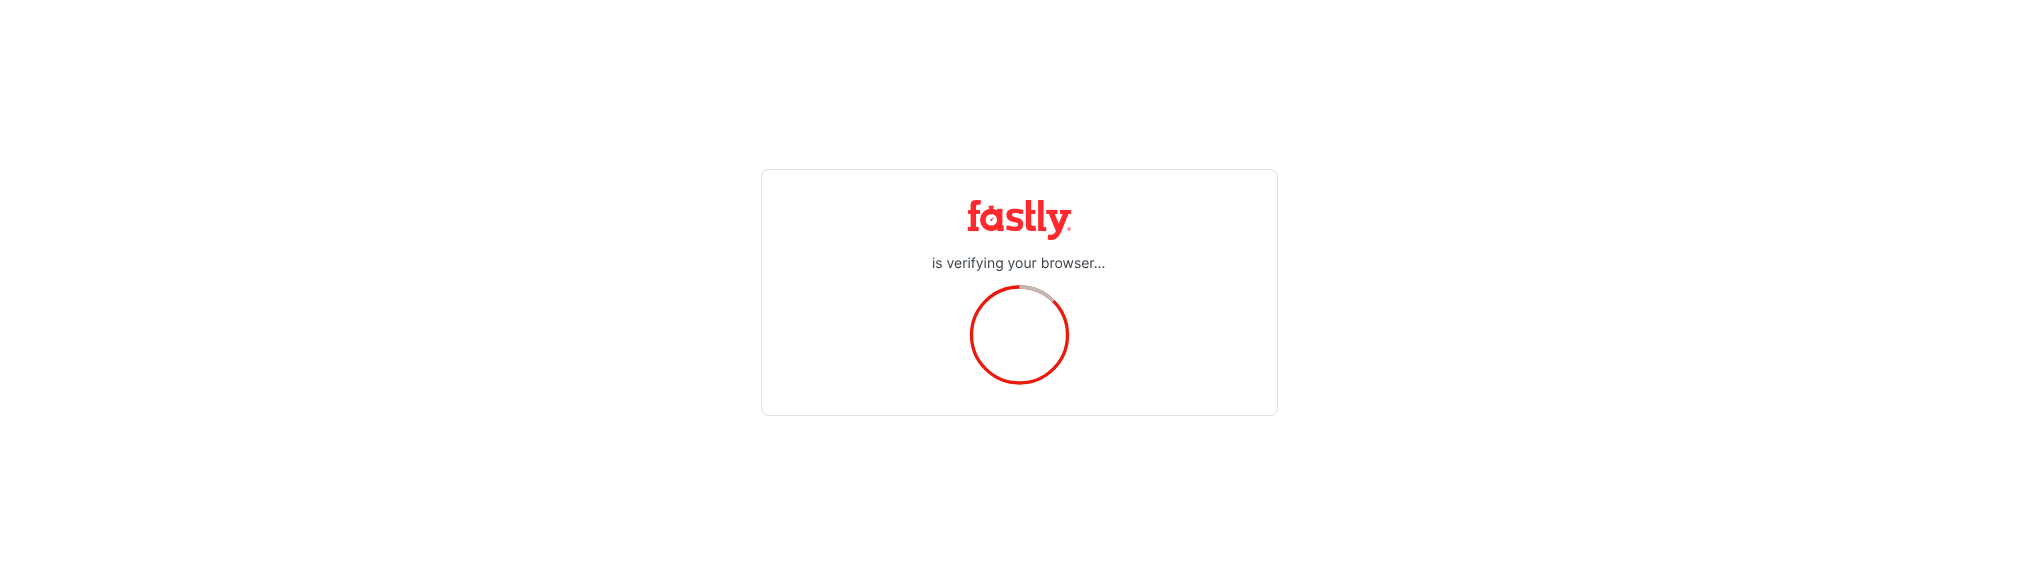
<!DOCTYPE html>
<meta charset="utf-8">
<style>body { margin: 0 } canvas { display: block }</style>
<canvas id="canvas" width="2038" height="584"></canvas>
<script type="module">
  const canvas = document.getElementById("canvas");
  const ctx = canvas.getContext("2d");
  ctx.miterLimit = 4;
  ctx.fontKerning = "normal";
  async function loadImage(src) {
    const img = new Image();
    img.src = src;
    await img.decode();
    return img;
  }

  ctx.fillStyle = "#ffffff";
  ctx.fillRect(0, 0, 2038, 584);
  ctx.beginPath();
  ctx.roundRect(761.5, 169.5, 516, 246, 7.5);
  ctx.strokeStyle = "#dce0e4";
  ctx.stroke();
  ctx.drawImage(await loadImage("img1.png"), 967, 200, 105, 40);
  ctx.font = "14px Inter";
  ctx.fillStyle = "#3a424a";
  ctx.fillText("is verifying your browser...", 932, 268);
  ctx.beginPath();
  ctx.moveTo(971.5, 335);
  ctx.bezierCurveTo(971.5, 308.5, 993, 287, 1019.5, 287);
  ctx.bezierCurveTo(1046, 287, 1067.5, 308.5, 1067.5, 335);
  ctx.bezierCurveTo(1067.5, 361.5, 1046, 383, 1019.5, 383);
  ctx.bezierCurveTo(993, 383, 971.5, 361.5, 971.5, 335);
  ctx.closePath();
  ctx.strokeStyle = "#eb1a0c";
  ctx.lineWidth = 3.3;
  ctx.stroke();
  ctx.beginPath();
  ctx.moveTo(1053.5, 301);
  ctx.bezierCurveTo(1044.5, 292, 1032, 287, 1019.5, 287);
  ctx.strokeStyle = "#c2bab5";
  ctx.stroke();
</script>
